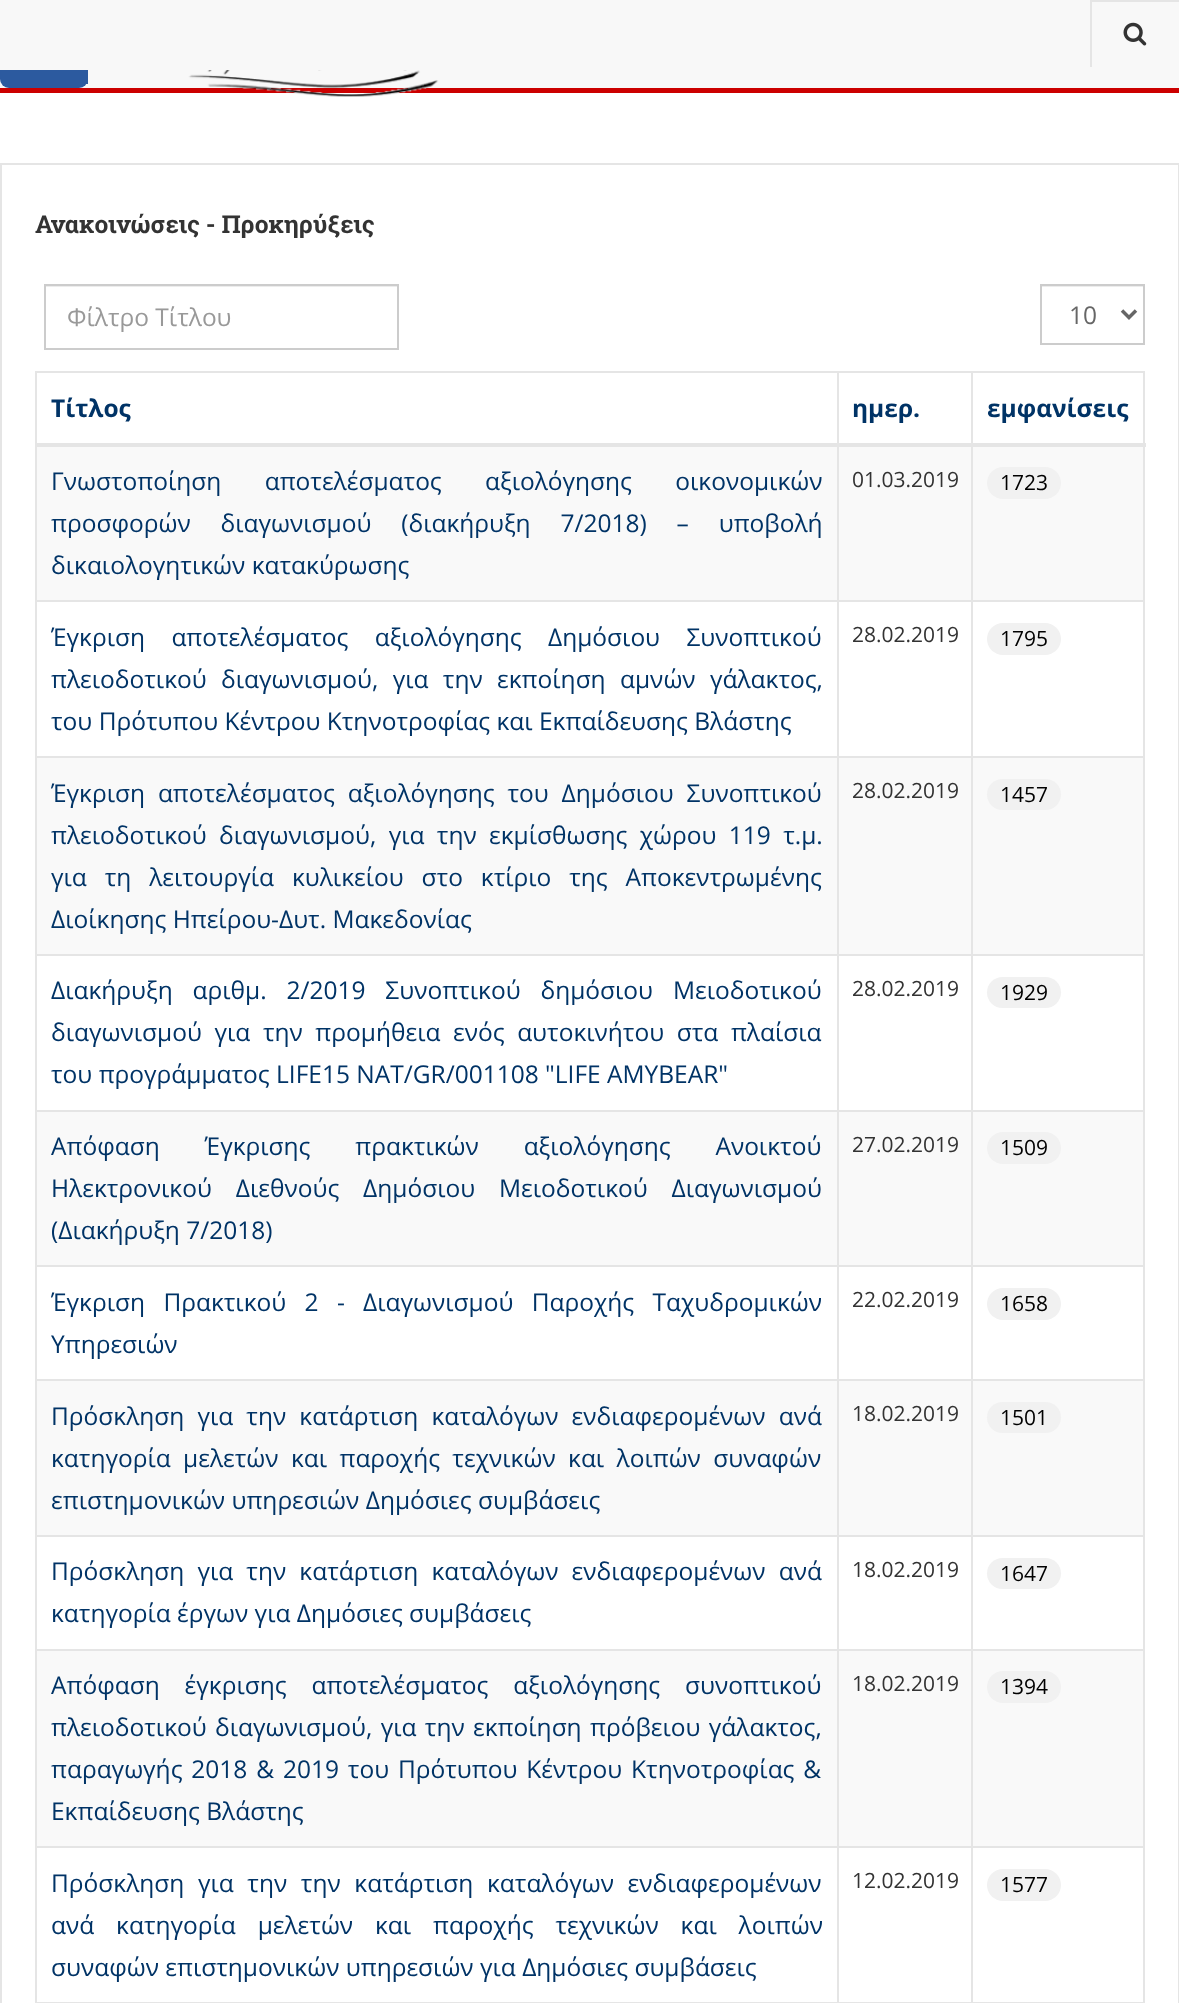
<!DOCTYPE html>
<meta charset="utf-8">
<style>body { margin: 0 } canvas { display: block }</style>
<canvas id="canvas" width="1179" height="2003"></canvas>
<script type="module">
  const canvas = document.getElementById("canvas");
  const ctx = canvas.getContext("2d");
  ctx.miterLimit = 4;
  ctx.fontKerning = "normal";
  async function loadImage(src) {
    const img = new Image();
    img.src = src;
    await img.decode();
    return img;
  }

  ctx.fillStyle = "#ffffff";
  ctx.fillRect(0, 0, 1179, 2003);
  ctx.fillStyle = "#f8f8f8";
  ctx.fillRect(0, 70, 1179, 18);
  ctx.fillStyle = "#cc0000";
  ctx.fillRect(0, 88, 1179, 5);
  ctx.fillStyle = "#2c5a9f";
  ctx.beginPath();
  ctx.roundRect(0, 0, 88, 88, 9);
  ctx.fill();
  ctx.fillRect(86, 79, 2, 5);
  ctx.drawImage(await loadImage("img1.png"), 188, 70, 251, 27);
  ctx.fillStyle = "#f8f8f8";
  ctx.fillRect(0, 0, 1179, 70);
  ctx.fillStyle = "#e5e5e5";
  ctx.fillRect(1092, 0, 87, 2);
  ctx.fillRect(1090, 0, 2, 67);
  ctx.drawImage(await loadImage("img2.png"), 1123, 22, 24, 24);
  ctx.strokeStyle = "#e5e5e5";
  ctx.lineWidth = 2;
  ctx.strokeRect(1, 164, 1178, 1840);
  ctx.font = "bold 24.5px Roboto Slab";
  ctx.fillStyle = "#333333";
  ctx.fillText("Ανακοινώσεις - Προκηρύξεις", 35, 233);
  ctx.fillStyle = "#ececec";
  ctx.fillRect(46, 286, 351, 1);
  ctx.strokeStyle = "#cccccc";
  ctx.strokeRect(45, 285, 353, 64);
  ctx.font = "24.5px Open Sans";
  ctx.fillStyle = "#999999";
  ctx.fillText("Φίλτρο Τίτλου", 67, 326);
  ctx.fillStyle = "#ececec";
  ctx.fillRect(1041, 286, 102, 1);
  ctx.strokeRect(1041, 285, 103, 59);
  ctx.beginPath();
  ctx.moveTo(1122, 310.5);
  ctx.lineTo(1129, 317.5);
  ctx.lineTo(1136, 310.5);
  ctx.strokeStyle = "#666666";
  ctx.lineWidth = 3.5;
  ctx.stroke();
  ctx.fillStyle = "#666666";
  ctx.fillText("10", 1069, 324);
  ctx.fillStyle = "#e5e5e5";
  ctx.fillRect(35, 371, 1110, 2);
  ctx.fillRect(1143, 371, 2, 1632);
  ctx.fillRect(35, 2002, 1110, 1);
  ctx.fillRect(35, 371, 2, 1632);
  ctx.font = "bold 24.5px Open Sans";
  ctx.fillStyle = "#003366";
  ctx.fillText("Τίτλος", 51, 417);
  ctx.fillText("ημερ.", 852, 417);
  ctx.fillStyle = "#f9f9f9";
  ctx.fillRect(37, 447, 1106, 153);
  ctx.fillStyle = "#e5e5e5";
  ctx.fillRect(971, 600, 174, 2);
  ctx.fillRect(971, 756, 174, 2);
  ctx.fillStyle = "#f9f9f9";
  ctx.fillRect(37, 758, 1106, 196);
  ctx.fillStyle = "#e5e5e5";
  ctx.fillRect(971, 954, 174, 2);
  ctx.fillRect(971, 1110, 174, 2);
  ctx.fillStyle = "#f9f9f9";
  ctx.fillRect(37, 1112, 1106, 153);
  ctx.fillStyle = "#e5e5e5";
  ctx.fillRect(971, 1265, 174, 2);
  ctx.fillRect(971, 1379, 174, 2);
  ctx.fillStyle = "#f9f9f9";
  ctx.fillRect(37, 1381, 1106, 154);
  ctx.fillStyle = "#e5e5e5";
  ctx.fillRect(971, 1535, 174, 2);
  ctx.fillRect(971, 1649, 174, 2);
  ctx.fillStyle = "#f9f9f9";
  ctx.fillRect(37, 1651, 1106, 195);
  ctx.fillStyle = "#e5e5e5";
  ctx.fillRect(971, 1846, 174, 2);
  ctx.fillRect(971, 1846, 2, 157);
  ctx.fillRect(837, 1846, 136, 2);
  ctx.fillRect(971, 1649, 2, 199);
  ctx.fillRect(837, 1649, 136, 2);
  ctx.fillRect(971, 1535, 2, 115);
  ctx.fillRect(837, 1535, 136, 2);
  ctx.fillRect(971, 1379, 2, 158);
  ctx.fillRect(837, 1379, 136, 2);
  ctx.fillRect(971, 1265, 2, 116);
  ctx.fillRect(837, 1265, 136, 2);
  ctx.fillRect(971, 1110, 2, 157);
  ctx.fillRect(837, 1110, 136, 2);
  ctx.fillRect(971, 954, 2, 157);
  ctx.fillRect(837, 954, 136, 2);
  ctx.fillRect(971, 756, 2, 200);
  ctx.fillRect(837, 756, 136, 2);
  ctx.fillRect(971, 600, 2, 158);
  ctx.fillRect(837, 600, 136, 2);
  ctx.fillRect(837, 1846, 2, 157);
  ctx.fillRect(35, 1846, 803, 2);
  ctx.fillRect(837, 1649, 2, 199);
  ctx.fillRect(35, 1649, 803, 2);
  ctx.fillRect(837, 1535, 2, 115);
  ctx.fillRect(35, 1535, 803, 2);
  ctx.fillRect(837, 1379, 2, 158);
  ctx.fillRect(35, 1379, 803, 2);
  ctx.fillRect(837, 1265, 2, 116);
  ctx.fillRect(35, 1265, 803, 2);
  ctx.fillRect(837, 1110, 2, 157);
  ctx.fillRect(35, 1110, 803, 2);
  ctx.fillRect(837, 954, 2, 157);
  ctx.fillRect(35, 954, 803, 2);
  ctx.fillRect(837, 756, 2, 200);
  ctx.fillRect(35, 756, 803, 2);
  ctx.fillRect(837, 600, 2, 158);
  ctx.fillRect(35, 600, 803, 2);
  ctx.fillRect(837, 371, 2, 231);
  ctx.fillRect(971, 371, 2, 231);
  ctx.fillRect(35, 443, 1111, 4);
  ctx.fillStyle = "#003366";
  ctx.fillText("εμφανίσεις", 987, 417);
  ctx.wordSpacing = "37px";
  ctx.font = "24.5px Open Sans";
  ctx.fillText("Γνωστοποίηση αποτελέσματος αξιολόγησης οικονομικών", 51, 490);
  ctx.wordSpacing = "23.5px";
  ctx.fillText("προσφορών διαγωνισμού (διακήρυξη 7/2018) – υποβολή", 51, 532);
  ctx.wordSpacing = "0px";
  ctx.fillText("δικαιολογητικών κατακύρωσης", 51, 574);
  ctx.font = "21px Open Sans";
  ctx.fillStyle = "#333333";
  ctx.fillText("01.03.2019", 852, 487);
  ctx.fillStyle = "#f1f1f1";
  ctx.beginPath();
  ctx.roundRect(987, 467, 74, 32, 16);
  ctx.fill();
  ctx.fillStyle = "#000000";
  ctx.fillText("1723", 1000, 490);
  ctx.wordSpacing = "20px";
  ctx.font = "24.5px Open Sans";
  ctx.fillStyle = "#003366";
  ctx.fillText("Έγκριση αποτελέσματος αξιολόγησης Δημόσιου Συνοπτικού", 51, 646);
  ctx.wordSpacing = "8px";
  ctx.fillText("πλειοδοτικού διαγωνισμού, για την εκποίηση αμνών γάλακτος,", 51, 688);
  ctx.wordSpacing = "0px";
  ctx.fillText("του Πρότυπου Κέντρου Κτηνοτροφίας και Εκπαίδευσης Βλάστης", 51, 730);
  ctx.font = "21px Open Sans";
  ctx.fillStyle = "#333333";
  ctx.fillText("28.02.2019", 852, 642);
  ctx.fillStyle = "#f1f1f1";
  ctx.beginPath();
  ctx.roundRect(987, 623, 74, 32, 16);
  ctx.fill();
  ctx.fillStyle = "#000000";
  ctx.fillText("1795", 1000, 646);
  ctx.wordSpacing = "6.5px";
  ctx.font = "24.5px Open Sans";
  ctx.fillStyle = "#003366";
  ctx.fillText("Έγκριση αποτελέσματος αξιολόγησης του Δημόσιου Συνοπτικού", 51, 802);
  ctx.wordSpacing = "6px";
  ctx.fillText("πλειοδοτικού διαγωνισμού, για την εκμίσθωσης χώρου 119 τ.µ.", 51, 844);
  ctx.wordSpacing = "11.5px";
  ctx.fillText("για τη λειτουργία κυλικείου στο κτίριο της Αποκεντρωμένης", 51, 886);
  ctx.wordSpacing = "0px";
  ctx.fillText("Διοίκησης Ηπείρου-Δυτ. Μακεδονίας", 51, 928);
  ctx.font = "21px Open Sans";
  ctx.fillStyle = "#333333";
  ctx.fillText("28.02.2019", 852, 798);
  ctx.fillStyle = "#f1f1f1";
  ctx.beginPath();
  ctx.roundRect(987, 779, 74, 31, 15.5);
  ctx.fill();
  ctx.fillStyle = "#000000";
  ctx.fillText("1457", 1000, 802);
  ctx.wordSpacing = "13.5px";
  ctx.font = "24.5px Open Sans";
  ctx.fillStyle = "#003366";
  ctx.fillText("Διακήρυξη αριθμ. 2/2019 Συνοπτικού δημόσιου Μειοδοτικού", 51, 999);
  ctx.wordSpacing = "6.25px";
  ctx.fillText("διαγωνισμού για την προμήθεια ενός αυτοκινήτου στα πλαίσια", 51, 1041);
  ctx.wordSpacing = "0px";
  ctx.fillText("του προγράμματος LIFE15 NAT/GR/001108 \"LIFE AMYBEAR\"", 51, 1083);
  ctx.font = "21px Open Sans";
  ctx.fillStyle = "#333333";
  ctx.fillText("28.02.2019", 852, 996);
  ctx.fillStyle = "#f1f1f1";
  ctx.beginPath();
  ctx.roundRect(987, 977, 74, 31, 15.5);
  ctx.fill();
  ctx.fillStyle = "#000000";
  ctx.fillText("1929", 1000, 1000);
  ctx.wordSpacing = "38.5px";
  ctx.font = "24.5px Open Sans";
  ctx.fillStyle = "#003366";
  ctx.fillText("Απόφαση Έγκρισης πρακτικών αξιολόγησης Ανοικτού", 51, 1155);
  ctx.wordSpacing = "17.5px";
  ctx.fillText("Ηλεκτρονικού Διεθνούς Δημόσιου Μειοδοτικού Διαγωνισμού", 51, 1197);
  ctx.wordSpacing = "0px";
  ctx.fillText("(Διακήρυξη 7/2018)", 51, 1239);
  ctx.font = "21px Open Sans";
  ctx.fillStyle = "#333333";
  ctx.fillText("27.02.2019", 852, 1152);
  ctx.fillStyle = "#f1f1f1";
  ctx.beginPath();
  ctx.roundRect(987, 1132, 74, 32, 16);
  ctx.fill();
  ctx.fillStyle = "#000000";
  ctx.fillText("1509", 1000, 1155);
  ctx.wordSpacing = "12px";
  ctx.font = "24.5px Open Sans";
  ctx.fillStyle = "#003366";
  ctx.fillText("Έγκριση Πρακτικού 2 -", 51, 1311);
  ctx.fillText("Διαγωνισμού Παροχής Ταχυδρομικών", 363, 1311);
  ctx.wordSpacing = "0px";
  ctx.fillText("Υπηρεσιών", 51, 1353);
  ctx.font = "21px Open Sans";
  ctx.fillStyle = "#333333";
  ctx.fillText("22.02.2019", 852, 1307);
  ctx.fillStyle = "#f1f1f1";
  ctx.beginPath();
  ctx.roundRect(987, 1288, 74, 32, 16);
  ctx.fill();
  ctx.fillStyle = "#000000";
  ctx.fillText("1658", 1000, 1311);
  ctx.wordSpacing = "6.75px";
  ctx.font = "24.5px Open Sans";
  ctx.fillStyle = "#003366";
  ctx.fillText("Πρόσκληση για την κατάρτιση καταλόγων ενδιαφερομένων ανά", 51, 1425);
  ctx.wordSpacing = "6px";
  ctx.fillText("κατηγορία μελετών και παροχής τεχνικών και λοιπών συναφών", 51, 1467);
  ctx.wordSpacing = "0px";
  ctx.fillText("επιστημονικών υπηρεσιών Δημόσιες συμβάσεις", 51, 1509);
  ctx.font = "21px Open Sans";
  ctx.fillStyle = "#333333";
  ctx.fillText("18.02.2019", 852, 1421);
  ctx.fillStyle = "#f1f1f1";
  ctx.beginPath();
  ctx.roundRect(987, 1402, 74, 31, 15.5);
  ctx.fill();
  ctx.fillStyle = "#000000";
  ctx.fillText("1501", 1000, 1425);
  ctx.wordSpacing = "6.75px";
  ctx.font = "24.5px Open Sans";
  ctx.fillStyle = "#003366";
  ctx.fillText("Πρόσκληση για την κατάρτιση καταλόγων ενδιαφερομένων ανά", 51, 1580);
  ctx.wordSpacing = "0px";
  ctx.fillText("κατηγορία έργων για Δημόσιες συμβάσεις", 51, 1622);
  ctx.font = "21px Open Sans";
  ctx.fillStyle = "#333333";
  ctx.fillText("18.02.2019", 852, 1577);
  ctx.fillStyle = "#f1f1f1";
  ctx.beginPath();
  ctx.roundRect(987, 1558, 74, 31, 15.5);
  ctx.fill();
  ctx.fillStyle = "#000000";
  ctx.fillText("1647", 1000, 1581);
  ctx.wordSpacing = "18.5px";
  ctx.font = "24.5px Open Sans";
  ctx.fillStyle = "#003366";
  ctx.fillText("Απόφαση έγκρισης αποτελέσματος αξιολόγησης συνοπτικού", 51, 1694);
  ctx.wordSpacing = "2px";
  ctx.fillText("πλειοδοτικού διαγωνισμού, για την εκποίηση πρόβειου γάλακτος,", 51, 1736);
  ctx.wordSpacing = "2.5px";
  ctx.fillText("παραγωγής 2018 & 2019 του Πρότυπου Κέντρου Κτηνοτροφίας &", 51, 1778);
  ctx.wordSpacing = "0px";
  ctx.fillText("Εκπαίδευσης Βλάστης", 51, 1820);
  ctx.font = "21px Open Sans";
  ctx.fillStyle = "#333333";
  ctx.fillText("18.02.2019", 852, 1691);
  ctx.fillStyle = "#f1f1f1";
  ctx.beginPath();
  ctx.roundRect(987, 1671, 74, 32, 16);
  ctx.fill();
  ctx.fillStyle = "#000000";
  ctx.fillText("1394", 1000, 1694);
  ctx.wordSpacing = "7.25px";
  ctx.font = "24.5px Open Sans";
  ctx.fillStyle = "#003366";
  ctx.fillText("Πρόσκληση για την την κατάρτιση καταλόγων ενδιαφερομένων", 51, 1892);
  ctx.wordSpacing = "15.5px";
  ctx.fillText("ανά κατηγορία μελετών και παροχής τεχνικών και λοιπών", 51, 1934);
  ctx.wordSpacing = "0px";
  ctx.fillText("συναφών επιστημονικών υπηρεσιών για Δημόσιες συμβάσεις", 51, 1976);
  ctx.font = "21px Open Sans";
  ctx.fillStyle = "#333333";
  ctx.fillText("12.02.2019", 852, 1888);
  ctx.fillStyle = "#f1f1f1";
  ctx.beginPath();
  ctx.roundRect(987, 1869, 74, 32, 16);
  ctx.fill();
  ctx.fillStyle = "#000000";
  ctx.fillText("1577", 1000, 1892);
</script>
